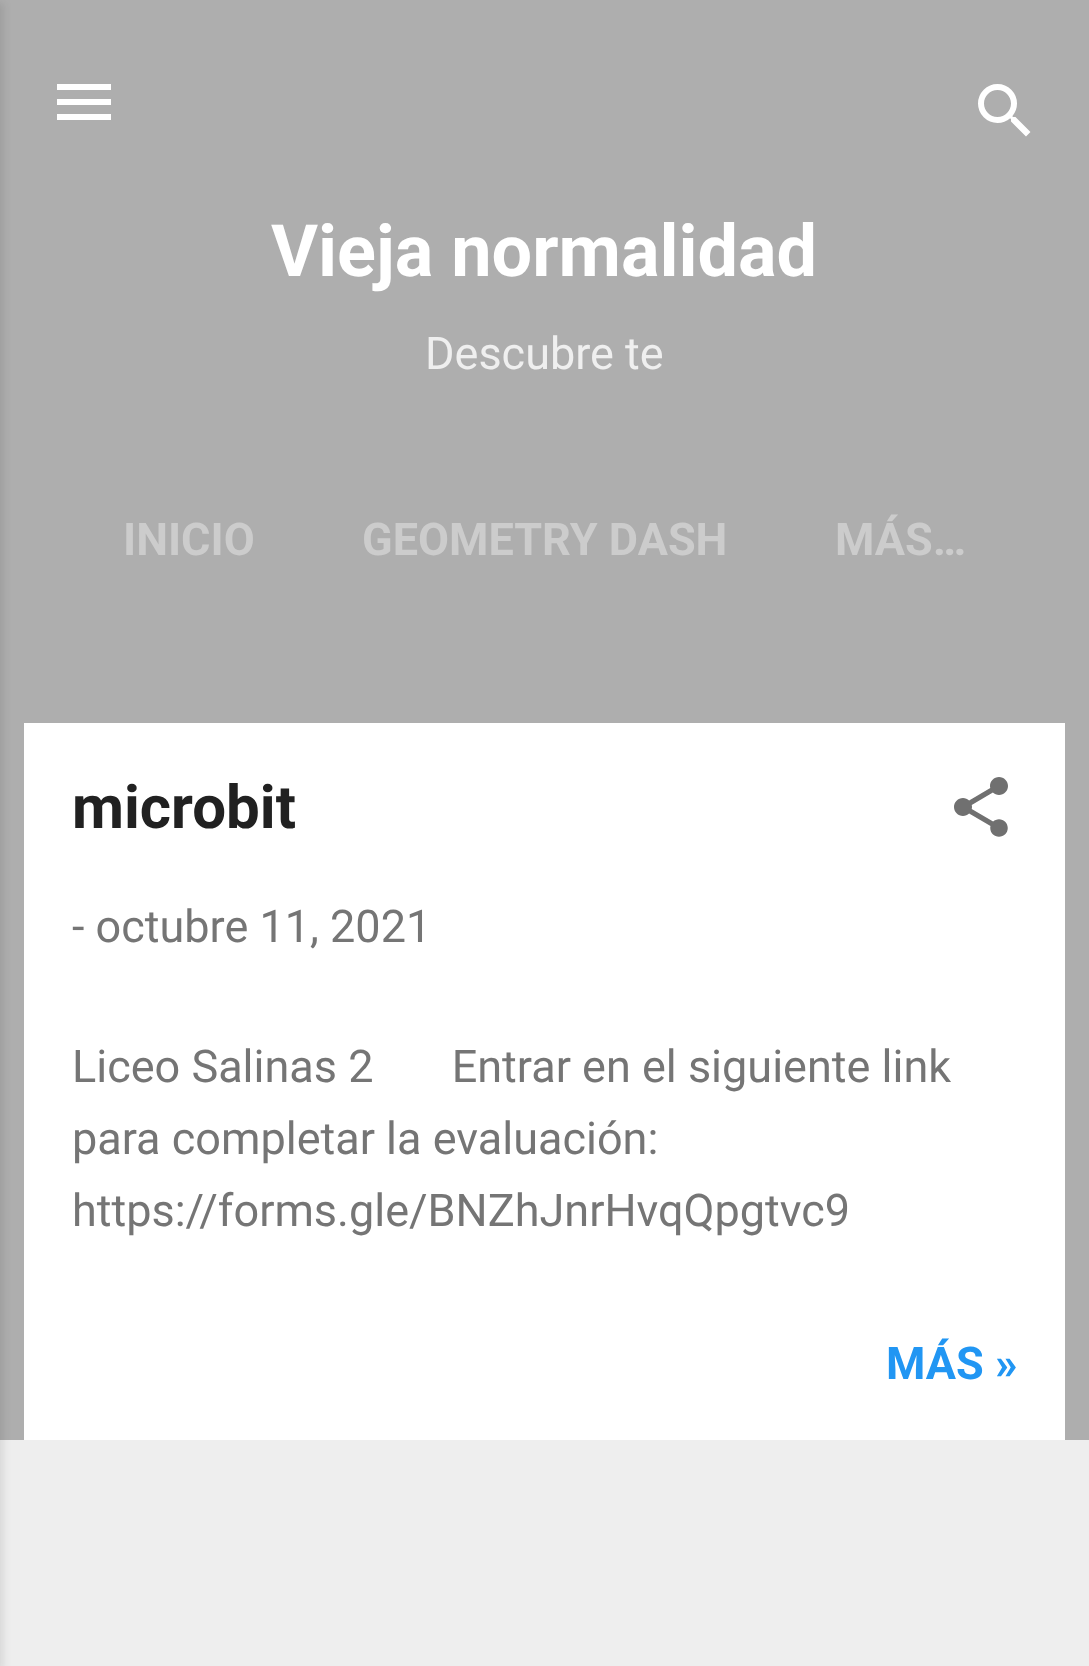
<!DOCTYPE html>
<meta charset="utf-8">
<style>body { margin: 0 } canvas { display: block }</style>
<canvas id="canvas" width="1089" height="1666"></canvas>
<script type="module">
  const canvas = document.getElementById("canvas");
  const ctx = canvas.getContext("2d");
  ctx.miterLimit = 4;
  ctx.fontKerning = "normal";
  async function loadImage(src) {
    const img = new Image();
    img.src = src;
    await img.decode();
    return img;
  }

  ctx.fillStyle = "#eeeeee";
  ctx.fillRect(0, 0, 1089, 1666);
  ctx.fillStyle = "#aeaeae";
  ctx.fillRect(0, 0, 1089, 1440);
  ctx.fillStyle = "rgba(0, 0, 0, 0.1)";
  ctx.filter = "blur(4.5px)";
  ctx.beginPath();
  ctx.rect(-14, 3, 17, 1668);
  ctx.fill();
  ctx.filter = "none";
  ctx.drawImage(await loadImage("img1.png"), 57, 84, 54, 36);
  ctx.drawImage(await loadImage("img2.png"), 978, 84, 53, 53);
  ctx.font = "bold 72px Roboto";
  ctx.fillStyle = "#ffffff";
  ctx.fillText("Vieja normalidad", 271, 276);
  ctx.font = "45px Roboto";
  ctx.fillStyle = "#efefef";
  ctx.fillText("Descubre te", 425, 369);
  ctx.font = "bold 45px Roboto";
  ctx.fillStyle = "#cccccc";
  ctx.fillText("INICIO", 123, 555);
  ctx.fillText("GEOMETRY DASH", 362, 555);
  ctx.fillText("MÁS…", 835, 555);
  ctx.fillStyle = "#ffffff";
  ctx.fillRect(24, 723, 1041, 717);
  ctx.font = "bold 60px Roboto";
  ctx.fillStyle = "#212121";
  ctx.fillText("microbit", 72, 828);
  ctx.drawImage(await loadImage("img3.png"), 954, 777, 54, 60);
  ctx.font = "45px Roboto";
  ctx.fillStyle = "#757575";
  ctx.fillText("- octubre 11, 2021", 72, 942);
  ctx.fillText("Liceo Salinas 2       Entrar en el siguiente link", 72, 1082);
  ctx.fillText("para completar la evaluación:", 72, 1154);
  ctx.fillText("https://forms.gle/BNZhJnrHvqQpgtvc9", 72, 1226);
  ctx.font = "bold 45px Roboto";
  ctx.fillStyle = "#2196f3";
  ctx.fillText("MÁS »", 886, 1379);
</script>
